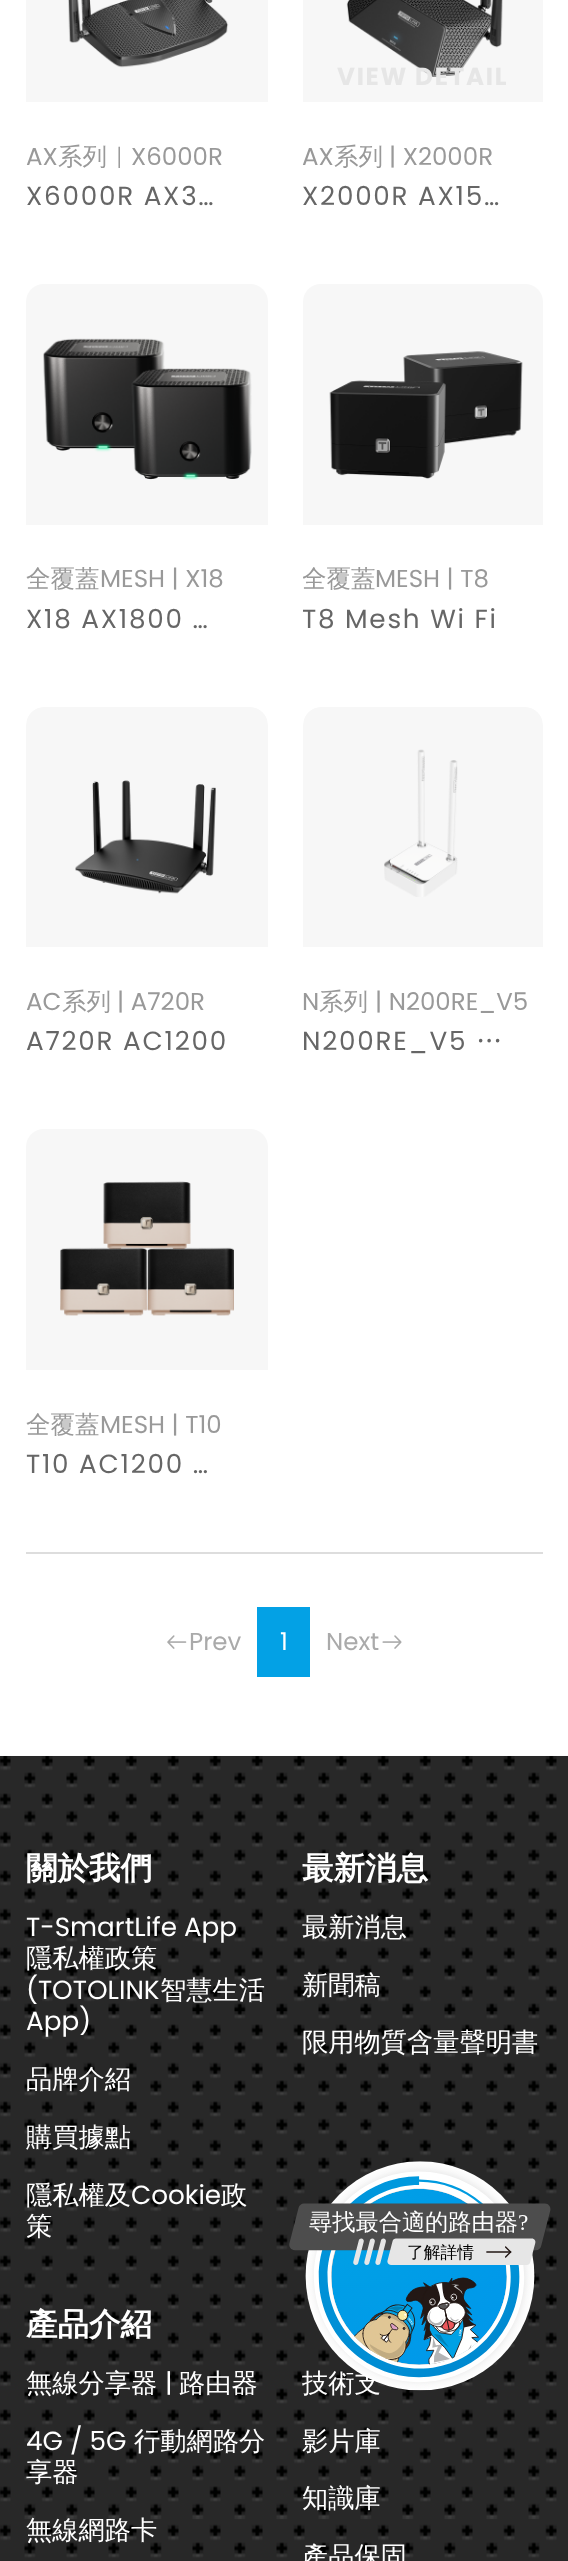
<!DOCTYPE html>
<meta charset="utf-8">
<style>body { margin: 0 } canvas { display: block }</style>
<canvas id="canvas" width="568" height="2561"></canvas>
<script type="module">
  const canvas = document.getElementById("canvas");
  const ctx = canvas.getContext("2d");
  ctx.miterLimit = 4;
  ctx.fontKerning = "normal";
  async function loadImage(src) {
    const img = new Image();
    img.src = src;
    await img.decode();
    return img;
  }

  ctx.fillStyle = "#ffffff";
  ctx.fillRect(0, 0, 568, 2561);
  ctx.fillStyle = "#f7f7f7";
  ctx.fillRect(26, 0, 242, 102);
  ctx.drawImage(await loadImage("img1.png"), 68, 0, 161, 68);
  ctx.font = "24.5px Poppins";
  ctx.fillStyle = "#999999";
  ctx.fillText("AX", 26, 165);
  ctx.save();
  ctx.beginPath();
  ctx.rect(26, 144, 242, 24);
  ctx.clip();
  ctx.font = "500 24.5px WenQuanYi Zen Hei";
  ctx.fillText("系列｜", 58, 165);
  ctx.restore();
  ctx.fillText("X6000R", 131, 165);
  ctx.letterSpacing = "1.75px";
  ctx.font = "26.25px Poppins";
  ctx.fillStyle = "#666666";
  ctx.fillText("X6000R AX3…", 26, 205);
  ctx.fillStyle = "#f7f7f7";
  ctx.fillRect(303, 0, 240, 102);
  ctx.drawImage(await loadImage("img2.png"), 346, 0, 157, 77);
  ctx.font = "bold 24.5px Poppins";
  ctx.fillStyle = "#e6e6e6";
  ctx.fillText("VIEW DETAIL", 337, 85);
  ctx.letterSpacing = "0px";
  ctx.font = "24.5px Poppins";
  ctx.fillStyle = "#999999";
  ctx.fillText("AX", 302, 165);
  ctx.save();
  ctx.beginPath();
  ctx.rect(303, 144, 240, 24);
  ctx.clip();
  ctx.font = "500 24.5px WenQuanYi Zen Hei";
  ctx.fillText("系列", 334, 165);
  ctx.restore();
  ctx.fillText("| X2000R", 389, 165);
  ctx.letterSpacing = "1.75px";
  ctx.font = "26.25px Poppins";
  ctx.fillStyle = "#666666";
  ctx.fillText("X2000R AX15…", 302, 205);
  ctx.fillStyle = "#f7f7f7";
  ctx.beginPath();
  ctx.roundRect(26, 284, 242, 241, [18, 18, 0, 0]);
  ctx.fill();
  ctx.drawImage(await loadImage("img3.png"), 43, 338, 209, 142);
  ctx.save();
  ctx.beginPath();
  ctx.rect(26, 567, 242, 25);
  ctx.clip();
  ctx.letterSpacing = "0px";
  ctx.font = "500 24.5px WenQuanYi Zen Hei";
  ctx.fillStyle = "#999999";
  ctx.fillText("全覆蓋", 26, 587);
  ctx.restore();
  ctx.letterSpacing = "0px";
  ctx.font = "24.5px Poppins";
  ctx.fillStyle = "#999999";
  ctx.fillText("MESH | X18", 100, 587);
  ctx.letterSpacing = "1.75px";
  ctx.font = "26.25px Poppins";
  ctx.fillStyle = "#666666";
  ctx.fillText("X18 AX1800 …", 26, 628);
  ctx.fillStyle = "#f7f7f7";
  ctx.beginPath();
  ctx.roundRect(303, 284, 240, 241, [18, 18, 0, 0]);
  ctx.fill();
  ctx.drawImage(await loadImage("img4.png"), 329, 351, 194, 128);
  ctx.save();
  ctx.beginPath();
  ctx.rect(303, 567, 240, 25);
  ctx.clip();
  ctx.letterSpacing = "0px";
  ctx.font = "500 24.5px WenQuanYi Zen Hei";
  ctx.fillStyle = "#999999";
  ctx.fillText("全覆蓋", 302, 587);
  ctx.restore();
  ctx.letterSpacing = "0px";
  ctx.font = "24.5px Poppins";
  ctx.fillStyle = "#999999";
  ctx.fillText("MESH | T8", 375, 587);
  ctx.save();
  ctx.beginPath();
  ctx.rect(303, 600, 240, 37);
  ctx.clip();
  ctx.letterSpacing = "1.75px";
  ctx.font = "26.25px Poppins";
  ctx.fillStyle = "#666666";
  ctx.fillText("T8 Mesh Wi Fi", 302, 628);
  ctx.restore();
  ctx.save();
  ctx.beginPath();
  ctx.roundRect(26, 707, 242, 257, 18);
  ctx.clip();
  ctx.fillStyle = "#f7f7f7";
  ctx.beginPath();
  ctx.roundRect(26, 707, 242, 240, [18, 18, 0, 0]);
  ctx.fill();
  ctx.restore();
  ctx.drawImage(await loadImage("img5.png"), 75, 780, 141, 114);
  ctx.fillText("AC", 26, 1010);
  ctx.save();
  ctx.beginPath();
  ctx.rect(26, 989, 242, 24);
  ctx.clip();
  ctx.font = "500 24.5px WenQuanYi Zen Hei";
  ctx.fillText("系列", 62, 1010);
  ctx.restore();
  ctx.fillText("| A720R", 117, 1010);
  ctx.letterSpacing = "1.75px";
  ctx.font = "26.25px Poppins";
  ctx.fillStyle = "#666666";
  ctx.fillText("A720R AC1200", 26, 1050);
  ctx.save();
  ctx.beginPath();
  ctx.roundRect(303, 707, 240, 257, 18);
  ctx.clip();
  ctx.fillStyle = "#f7f7f7";
  ctx.beginPath();
  ctx.roundRect(303, 707, 240, 240, [18, 18, 0, 0]);
  ctx.fill();
  ctx.restore();
  ctx.drawImage(await loadImage("img6.png"), 384, 749, 74, 148);
  ctx.letterSpacing = "0px";
  ctx.font = "24.5px Poppins";
  ctx.fillStyle = "#999999";
  ctx.fillText("N", 302, 1010);
  ctx.save();
  ctx.beginPath();
  ctx.rect(303, 989, 240, 24);
  ctx.clip();
  ctx.font = "500 24.5px WenQuanYi Zen Hei";
  ctx.fillText("系列", 319, 1010);
  ctx.restore();
  ctx.fillText("| N200RE_V5", 375, 1010);
  ctx.letterSpacing = "1.75px";
  ctx.font = "26.25px Poppins";
  ctx.fillStyle = "#666666";
  ctx.fillText("N200RE_V5", 302, 1050);
  ctx.font = "500 26.25px WenQuanYi Zen Hei";
  ctx.fillText("…", 476, 1050);
  ctx.fillStyle = "#f7f7f7";
  ctx.beginPath();
  ctx.roundRect(26, 1129, 242, 241, [18, 18, 0, 0]);
  ctx.fill();
  ctx.drawImage(await loadImage("img7.png"), 60, 1181, 174, 135);
  ctx.letterSpacing = "0px";
  ctx.font = "500 24.5px WenQuanYi Zen Hei";
  ctx.fillStyle = "#999999";
  ctx.fillText("全覆蓋", 26, 1433);
  ctx.font = "24.5px Poppins";
  ctx.fillText("MESH | T10", 100, 1433);
  ctx.letterSpacing = "1.75px";
  ctx.font = "26.25px Poppins";
  ctx.fillStyle = "#666666";
  ctx.fillText("T10 AC1200 …", 26, 1473);
  ctx.fillStyle = "#dddddd";
  ctx.fillRect(26, 1552, 517, 2);
  ctx.drawImage(await loadImage("img8.png"), 167, 1635, 20, 14);
  ctx.letterSpacing = "0px";
  ctx.font = "24.5px Poppins";
  ctx.fillStyle = "#aaaaaa";
  ctx.fillText("Prev", 189, 1650);
  ctx.fillStyle = "#03a1e5";
  ctx.fillRect(257, 1607, 53, 70);
  ctx.fillStyle = "#ffffff";
  ctx.fillText("1", 280, 1650);
  ctx.fillStyle = "#aaaaaa";
  ctx.fillText("Next", 326, 1650);
  ctx.drawImage(await loadImage("img9.png"), 382, 1635, 20, 14);
  ctx.fillStyle = "#fcfcfc";
  ctx.fillRect(0, 1755, 568, 1);
  ctx.drawImage(await loadImage("img10.png"), 0, 1756, 568, 805);
  ctx.font = "bold 31.5px WenQuanYi Zen Hei";
  ctx.fillStyle = "#ffffff";
  ctx.fillText("關於我們", 26, 1879);
  ctx.font = "26.25px Poppins";
  ctx.fillText("T-SmartLife App", 26, 1936);
  ctx.font = "500 26.25px WenQuanYi Zen Hei";
  ctx.fillText("隱私權政策", 26, 1967);
  ctx.font = "26.25px Poppins";
  ctx.fillText("(TOTOLINK", 26, 1999);
  ctx.font = "500 26.25px WenQuanYi Zen Hei";
  ctx.fillText("智慧生活", 160, 1999);
  ctx.font = "26.25px Poppins";
  ctx.fillText("App)", 26, 2030);
  ctx.font = "500 26.25px WenQuanYi Zen Hei";
  ctx.fillText("品牌介紹", 26, 2088);
  ctx.fillText("購買據點", 26, 2146);
  ctx.fillText("隱私權及", 26, 2204);
  ctx.font = "26.25px Poppins";
  ctx.fillText("Cookie", 131, 2204);
  ctx.font = "500 26.25px WenQuanYi Zen Hei";
  ctx.fillText("政", 221, 2204);
  ctx.fillText("策", 26, 2235);
  ctx.font = "bold 31.5px WenQuanYi Zen Hei";
  ctx.fillText("最新消息", 302, 1879);
  ctx.font = "500 26.25px WenQuanYi Zen Hei";
  ctx.fillText("最新消息", 302, 1936);
  ctx.fillText("新聞稿", 302, 1994);
  ctx.fillText("限用物質含量聲明書", 302, 2051);
  ctx.font = "bold 31.5px WenQuanYi Zen Hei";
  ctx.fillText("產品介紹", 26, 2335);
  ctx.font = "500 26.25px WenQuanYi Zen Hei";
  ctx.fillText("無線分享器", 26, 2392);
  ctx.font = "26.25px Poppins";
  ctx.fillText("|", 165, 2392);
  ctx.font = "500 26.25px WenQuanYi Zen Hei";
  ctx.fillText("路由器", 179, 2392);
  ctx.font = "26.25px Poppins";
  ctx.fillText("4G / 5G", 26, 2450);
  ctx.font = "500 26.25px WenQuanYi Zen Hei";
  ctx.fillText("行動網路分", 134, 2450);
  ctx.fillText("享器", 26, 2481);
  ctx.fillText("無線網路卡", 26, 2539);
  ctx.fillText("技術支", 302, 2392);
  ctx.fillText("影片庫", 302, 2450);
  ctx.fillText("知識庫", 302, 2507);
  ctx.fillText("產品保固", 302, 2565);
  ctx.drawImage(await loadImage("img11.png"), 289, 2161, 262, 230);
</script>
